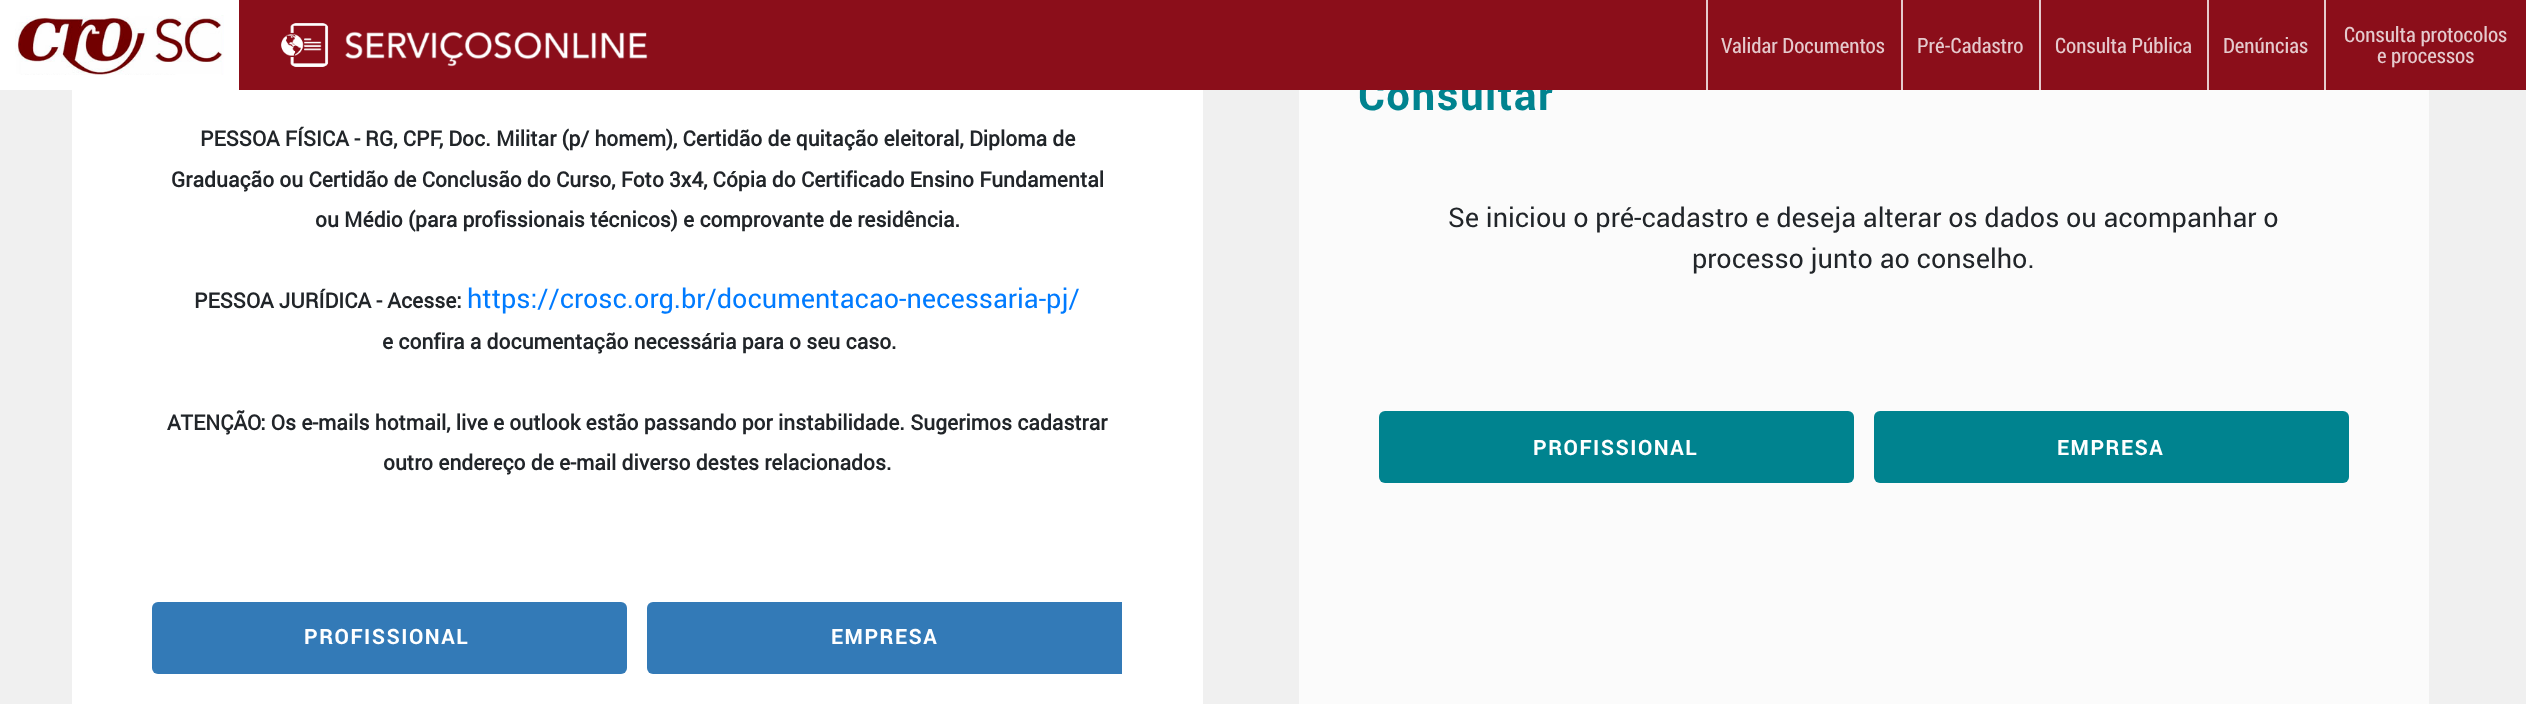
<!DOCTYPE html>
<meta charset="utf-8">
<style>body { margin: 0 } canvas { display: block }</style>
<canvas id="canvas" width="2526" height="704"></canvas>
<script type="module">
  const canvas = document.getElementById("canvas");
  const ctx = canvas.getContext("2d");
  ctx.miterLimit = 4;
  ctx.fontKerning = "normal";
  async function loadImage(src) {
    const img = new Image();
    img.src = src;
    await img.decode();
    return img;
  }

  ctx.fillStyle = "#f0f0f0";
  ctx.fillRect(0, 0, 2526, 704);
  ctx.fillStyle = "#fbfbfb";
  ctx.fillRect(1299, 90, 1130, 614);
  ctx.letterSpacing = "1.5px";
  ctx.font = "bold 42px 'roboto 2'";
  ctx.fillStyle = "#00838f";
  ctx.fillText("Consultar", 1358, 110);
  ctx.fillStyle = "#8b0e1a";
  ctx.fillRect(239, 0, 2287, 90);
  ctx.fillStyle = "#ffffff";
  ctx.fillRect(0, 0, 239, 90);
  ctx.drawImage(await loadImage("img1.png"), 15, 15, 209, 60);
  ctx.drawImage(await loadImage("img2.png"), 281, 23, 367, 44);
  ctx.fillStyle = "#e5cacd";
  ctx.fillRect(1706, 0, 2, 90);
  ctx.letterSpacing = "0px";
  ctx.font = "21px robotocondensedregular";
  ctx.fillText("Validar Documentos", 1721, 53);
  ctx.fillRect(1901, 0, 2, 90);
  ctx.fillText("Pré-Cadastro", 1917, 53);
  ctx.fillRect(2039, 0, 2, 90);
  ctx.fillText("Consulta Pública", 2055, 53);
  ctx.fillRect(2207, 0, 2, 90);
  ctx.fillText("Denúncias", 2223, 53);
  ctx.fillRect(2324, 0, 2, 90);
  ctx.fillText("Consulta protocolos", 2344, 42);
  ctx.fillText("e processos", 2377, 63);
  ctx.fillStyle = "#ffffff";
  ctx.fillRect(72, 90, 1131, 614);
  ctx.font = "bold 21px roboto";
  ctx.fillStyle = "#212529";
  ctx.fillText("PESSOA FÍSICA - RG, CPF, Doc. Militar (p/ homem), Certidão de quitação eleitoral, Diploma de", 200, 146);
  ctx.fillText("Graduação ou Certidão de Conclusão do Curso, Foto 3x4, Cópia do Certificado Ensino Fundamental", 171, 187);
  ctx.fillText("ou Médio (para profissionais técnicos) e comprovante de residência.", 315, 227);
  ctx.fillText("PESSOA JURÍDICA - Acesse:", 194, 308);
  ctx.font = "27px roboto";
  ctx.fillStyle = "#007bff";
  ctx.fillText("https://crosc.org.br/documentacao-necessaria-pj/", 467, 308);
  ctx.font = "bold 21px roboto";
  ctx.fillStyle = "#212529";
  ctx.fillText("e confira a documentação necessária para o seu caso.", 382, 349);
  ctx.fillText("ATENÇÃO: Os e-mails hotmail, live e outlook estão passando por instabilidade. Sugerimos cadastrar", 167, 430);
  ctx.fillText("outro endereço de e-mail diverso destes relacionados.", 383, 470);
  ctx.fillStyle = "#337ab7";
  ctx.beginPath();
  ctx.roundRect(152, 602, 475, 72, 6);
  ctx.fill();
  ctx.letterSpacing = "1.5px";
  ctx.font = "bold 21px 'roboto 2'";
  ctx.fillStyle = "#ffffff";
  ctx.fillText("PROFISSIONAL", 304, 644);
  ctx.fillStyle = "#337ab7";
  ctx.beginPath();
  ctx.roundRect(647, 602, 475, 72, [6, 0, 0, 6]);
  ctx.fill();
  ctx.fillStyle = "#ffffff";
  ctx.fillText("EMPRESA", 831, 644);
  ctx.letterSpacing = "0px";
  ctx.font = "27px roboto";
  ctx.fillStyle = "#212529";
  ctx.fillText("Se iniciou o pré-cadastro e deseja alterar os dados ou acompanhar o", 1448, 227);
  ctx.fillText("processo junto ao conselho.", 1692, 268);
  ctx.fillStyle = "#00838f";
  ctx.beginPath();
  ctx.roundRect(1379, 411, 475, 72, 6);
  ctx.fill();
  ctx.letterSpacing = "1.5px";
  ctx.font = "bold 21px 'roboto 2'";
  ctx.fillStyle = "#ffffff";
  ctx.fillText("PROFISSIONAL", 1533, 455);
  ctx.fillStyle = "#00838f";
  ctx.beginPath();
  ctx.roundRect(1874, 411, 475, 72, 6);
  ctx.fill();
  ctx.fillStyle = "#ffffff";
  ctx.fillText("EMPRESA", 2057, 455);
</script>
